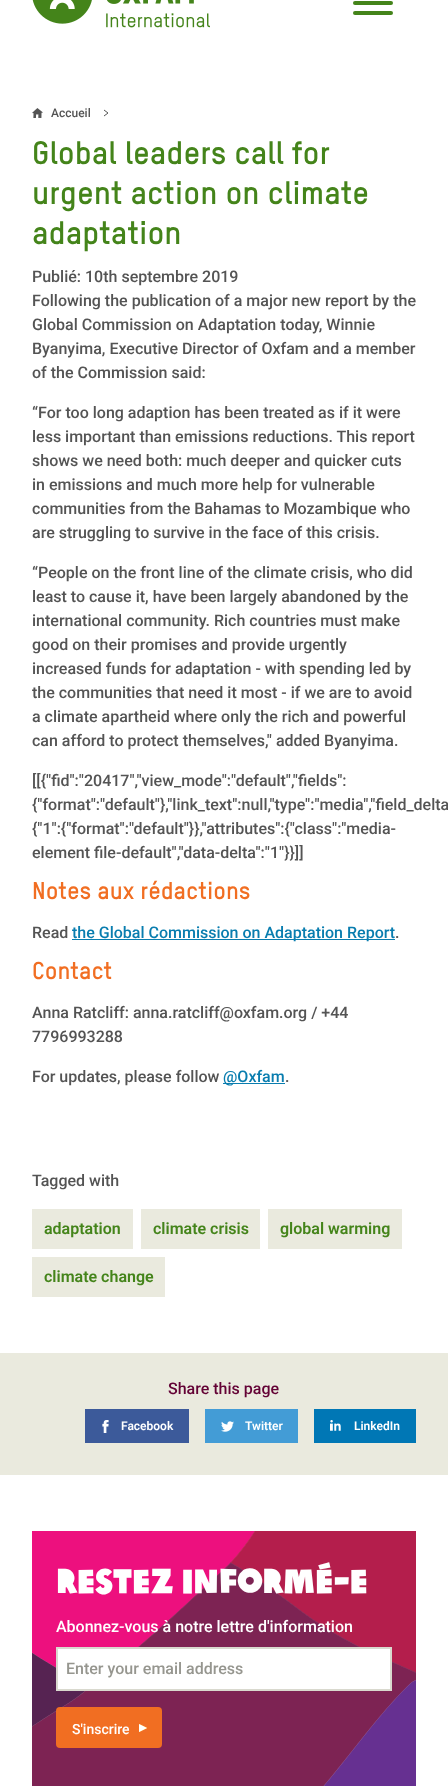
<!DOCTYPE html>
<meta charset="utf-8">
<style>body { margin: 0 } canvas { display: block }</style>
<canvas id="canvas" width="448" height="1786"></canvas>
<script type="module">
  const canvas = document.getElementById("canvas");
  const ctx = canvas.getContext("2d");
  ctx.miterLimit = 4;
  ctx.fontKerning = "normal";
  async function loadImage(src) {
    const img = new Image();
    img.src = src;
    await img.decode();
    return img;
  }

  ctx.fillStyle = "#ffffff";
  ctx.fillRect(0, 0, 448, 1786);
  ctx.drawImage(await loadImage("img1.png"), 32, 0, 178, 28);
  ctx.fillStyle = "#44841a";
  ctx.beginPath();
  ctx.roundRect(353, 11, 40, 4, 2);
  ctx.fill();
  ctx.beginPath();
  ctx.roundRect(353, 1, 40, 4, 2);
  ctx.fill();
  ctx.drawImage(await loadImage("img2.png"), 32, 108, 11, 10);
  ctx.font = "500 12px Roboto";
  ctx.fillStyle = "#545454";
  ctx.fillText("Accueil", 51, 117);
  ctx.beginPath();
  ctx.moveTo(104, 110);
  ctx.lineTo(108, 113);
  ctx.lineTo(104, 116);
  ctx.strokeStyle = "#545554";
  ctx.stroke();
  ctx.font = "bold 32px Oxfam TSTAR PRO";
  ctx.fillStyle = "#44841a";
  ctx.fillText("Global leaders call for", 32, 164);
  ctx.fillText("urgent action on climate", 32, 204);
  ctx.fillText("adaptation", 32, 244);
  ctx.font = "500 16px Roboto";
  ctx.fillStyle = "#545454";
  ctx.fillText("Publié: 10th septembre 2019", 32, 282);
  ctx.fillText("Following the publication of a major new report by the", 32, 306);
  ctx.fillText("Global Commission on Adaptation today, Winnie", 32, 330);
  ctx.fillText("Byanyima, Executive Director of Oxfam and a member", 32, 354);
  ctx.fillText("of the Commission said:", 32, 378);
  ctx.fillText("“For too long adaption has been treated as if it were", 32, 418);
  ctx.fillText("less important than emissions reductions. This report", 32, 442);
  ctx.fillText("shows we need both: much deeper and quicker cuts", 32, 466);
  ctx.fillText("in emissions and much more help for vulnerable", 32, 490);
  ctx.fillText("communities from the Bahamas to Mozambique who", 32, 514);
  ctx.fillText("are struggling to survive in the face of this crisis.", 32, 538);
  ctx.fillText("“People on the front line of the climate crisis, who did", 32, 578);
  ctx.fillText("least to cause it, have been largely abandoned by the", 32, 602);
  ctx.fillText("international community. Rich countries must make", 32, 626);
  ctx.fillText("good on their promises and provide urgently", 32, 650);
  ctx.fillText("increased funds for adaptation - with spending led by", 32, 674);
  ctx.fillText("the communities that need it most - if we are to avoid", 32, 698);
  ctx.fillText("a climate apartheid where only the rich and powerful", 32, 722);
  ctx.fillText("can afford to protect themselves,\" added Byanyima.", 32, 746);
  ctx.fillText("[[{\"fid\":\"20417\",\"view_mode\":\"default\",\"fields\":", 32, 786);
  ctx.fillText("{\"format\":\"default\"},\"link_text\":null,\"type\":\"media\",\"field_delta", 32, 810);
  ctx.fillText("{\"1\":{\"format\":\"default\"}},\"attributes\":{\"class\":\"media-", 32, 834);
  ctx.fillText("element file-default\",\"data-delta\":\"1\"}}]]", 32, 858);
  ctx.font = "bold 24px Oxfam TSTAR PRO";
  ctx.fillStyle = "#f16e22";
  ctx.fillText("Notes aux rédactions", 32, 899);
  ctx.font = "500 16px Roboto";
  ctx.fillStyle = "#545454";
  ctx.fillText("Read", 32, 938);
  ctx.fillStyle = "#097daf";
  ctx.fillRect(72, 939, 323, 1);
  ctx.fillText("the Global Commission on Adaptation Report", 72, 938);
  ctx.fillStyle = "#545454";
  ctx.fillText(".", 395, 938);
  ctx.font = "bold 24px Oxfam TSTAR PRO";
  ctx.fillStyle = "#f16e22";
  ctx.fillText("Contact", 32, 979);
  ctx.font = "500 16px Roboto";
  ctx.fillStyle = "#545454";
  ctx.fillText("Anna Ratcliff: anna.ratcliff@oxfam.org / +44", 32, 1018);
  ctx.fillText("7796993288", 32, 1042);
  ctx.fillText("For updates, please follow", 32, 1082);
  ctx.fillStyle = "#097daf";
  ctx.fillRect(223, 1083, 62, 1);
  ctx.fillText("@Oxfam", 223, 1082);
  ctx.fillStyle = "#545454";
  ctx.fillText(".", 285, 1082);
  ctx.fillText("Tagged with", 32, 1186);
  ctx.fillStyle = "#eaeade";
  ctx.fillRect(32, 1209, 101, 40);
  ctx.font = "600 16px Roboto";
  ctx.fillStyle = "#44841a";
  ctx.fillText("adaptation", 44, 1234);
  ctx.fillStyle = "#eaeade";
  ctx.fillRect(141, 1209, 119, 40);
  ctx.fillStyle = "#44841a";
  ctx.fillText("climate crisis", 153, 1234);
  ctx.fillStyle = "#eaeade";
  ctx.fillRect(268, 1209, 134, 40);
  ctx.fillStyle = "#44841a";
  ctx.fillText("global warming", 280, 1234);
  ctx.fillStyle = "#eaeade";
  ctx.fillRect(32, 1257, 133, 40);
  ctx.fillStyle = "#44841a";
  ctx.fillText("climate change", 44, 1282);
  ctx.fillStyle = "#eaeade";
  ctx.fillRect(0, 1353, 448, 122);
  ctx.font = "500 16px Roboto";
  ctx.fillStyle = "#630235";
  ctx.fillText("Share this page", 168, 1394);
  ctx.fillStyle = "#3c5a9a";
  ctx.fillRect(85, 1409, 104, 34);
  ctx.drawImage(await loadImage("img3.png"), 102, 1420, 7, 13);
  ctx.font = "600 12px Roboto";
  ctx.fillStyle = "#ffffff";
  ctx.fillText("Facebook", 121, 1430);
  ctx.fillStyle = "#439cd6";
  ctx.fillRect(205, 1409, 93, 34);
  ctx.drawImage(await loadImage("img4.png"), 221, 1421, 13, 11);
  ctx.fillStyle = "#ffffff";
  ctx.fillText("Twitter", 245, 1430);
  ctx.fillStyle = "#0077b5";
  ctx.fillRect(314, 1409, 102, 34);
  ctx.drawImage(await loadImage("img5.png"), 330, 1420, 11, 11);
  ctx.fillStyle = "#ffffff";
  ctx.fillText("LinkedIn", 354, 1430);
  ctx.drawImage(await loadImage("img6.png"), 32, 1531, 384, 255);
  ctx.font = "bold 32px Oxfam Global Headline";
  ctx.fillText("Restez informé-e", 56, 1593);
  ctx.font = "500 16px Roboto";
  ctx.fillText("Abonnez-vous à notre lettre d'information", 56, 1632);
  ctx.beginPath();
  ctx.rect(57, 1648, 334, 42);
  ctx.fill();
  ctx.strokeStyle = "#d9d9ce";
  ctx.lineWidth = 2;
  ctx.stroke();
  ctx.fillStyle = "#96968f";
  ctx.fillText("Enter your email address", 66, 1674);
  ctx.fillStyle = "#f16e22";
  ctx.beginPath();
  ctx.roundRect(56, 1707, 106, 41, 4);
  ctx.fill();
  ctx.drawImage(await loadImage("img7.png"), 139, 1724, 8, 8);
  ctx.font = "500 14px Roboto";
  ctx.fillStyle = "#ffffff";
  ctx.fillText("S'inscrire", 72, 1734);
</script>
